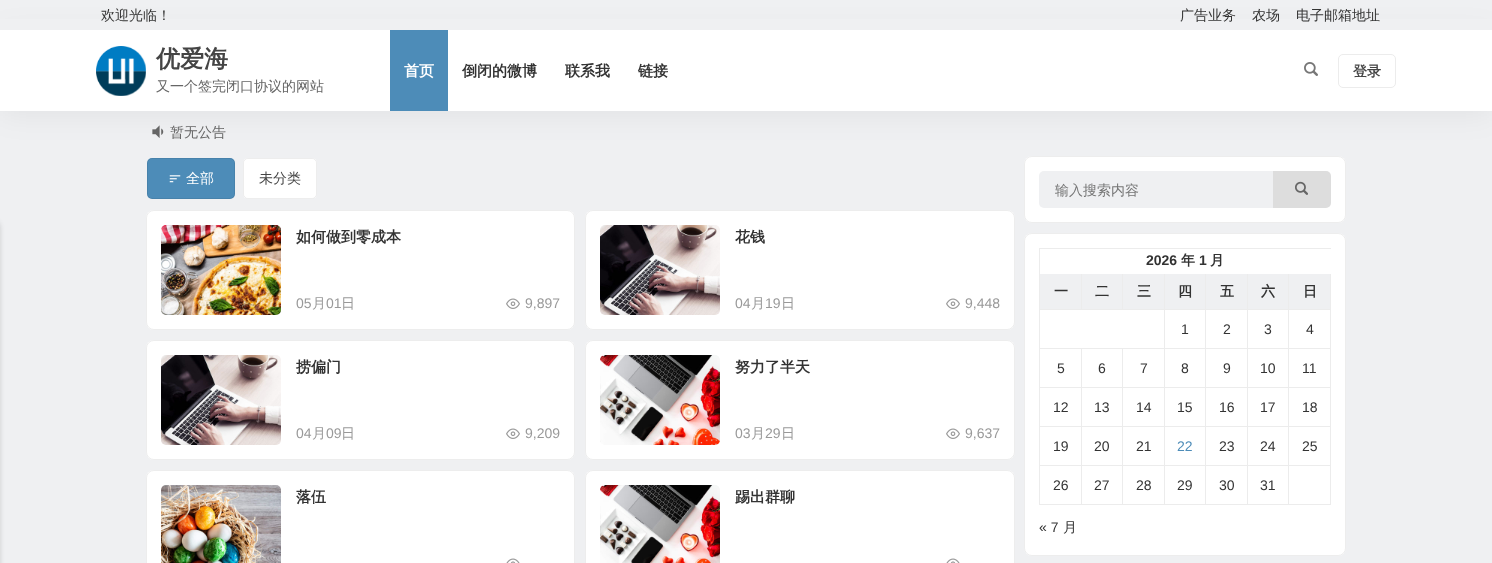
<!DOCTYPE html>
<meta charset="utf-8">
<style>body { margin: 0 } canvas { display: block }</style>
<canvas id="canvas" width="1492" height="563"></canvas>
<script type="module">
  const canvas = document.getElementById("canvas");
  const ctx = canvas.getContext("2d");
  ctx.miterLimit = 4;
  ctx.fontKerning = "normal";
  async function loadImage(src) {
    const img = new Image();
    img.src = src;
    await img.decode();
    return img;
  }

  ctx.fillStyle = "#eff0f2";
  ctx.fillRect(0, 0, 1492, 563);
  ctx.drawImage(await loadImage("img3.png"), 152, 125, 12, 13);
  ctx.fillStyle = "#4d8cb8";
  ctx.beginPath();
  ctx.roundRect(147, 158, 88, 41, 5);
  ctx.fill();
  ctx.beginPath();
  ctx.roundRect(147.5, 158.5, 87, 40, 4.5);
  ctx.strokeStyle = "rgba(0, 0, 0, 0.07)";
  ctx.stroke();
  ctx.fillStyle = "#ffffff";
  ctx.beginPath();
  ctx.roundRect(243, 158, 74, 41, 5);
  ctx.fill();
  ctx.beginPath();
  ctx.roundRect(243.5, 158.5, 73, 40, 4.5);
  ctx.stroke();
  ctx.beginPath();
  ctx.roundRect(1024, 156, 322, 67, 8);
  ctx.fill();
  ctx.beginPath();
  ctx.roundRect(1024.5, 156.5, 321, 66, 7.5);
  ctx.stroke();
  ctx.fillStyle = "rgba(0, 0, 0, 0.06)";
  ctx.filter = "blur(15px)";
  ctx.beginPath();
  ctx.rect(0, 33, 1492, 81);
  ctx.fill();
  ctx.filter = "none";
  ctx.fillStyle = "#eff0f2";
  ctx.fillRect(0, 19, 1492, 11);
  ctx.font = "500 14px WenQuanYi Zen Hei";
  ctx.fillStyle = "#333333";
  ctx.fillText("欢迎光临！", 101, 20);
  ctx.fillText("广告业务", 1180, 20);
  ctx.fillText("农场", 1252, 20);
  ctx.fillText("电子邮箱地址", 1296, 20);
  ctx.fillStyle = "#ffffff";
  ctx.fillRect(0, 30, 1492, 81);
  ctx.drawImage(await loadImage("img1.png"), 96, 46, 50, 50);
  ctx.font = "bold 24px WenQuanYi Zen Hei";
  ctx.fillStyle = "#444444";
  ctx.fillText("优爱海", 156, 67);
  ctx.font = "500 14px WenQuanYi Zen Hei";
  ctx.fillStyle = "#666666";
  ctx.fillText("又一个签完闭口协议的网站", 156, 91);
  ctx.fillStyle = "#4d8cb8";
  ctx.fillRect(390, 30, 58, 81);
  ctx.font = "bold 15px WenQuanYi Zen Hei";
  ctx.fillStyle = "#ffffff";
  ctx.fillText("首页", 404, 76);
  ctx.fillStyle = "#333333";
  ctx.fillText("倒闭的微博", 462, 76);
  ctx.fillText("联系我", 565, 76);
  ctx.fillText("链接", 638, 76);
  ctx.drawImage(await loadImage("img2.png"), 1304, 62, 14, 14);
  ctx.beginPath();
  ctx.roundRect(1338.5, 54.5, 57, 33, 4.5);
  ctx.strokeStyle = "#ececec";
  ctx.stroke();
  ctx.font = "bold 14px WenQuanYi Zen Hei";
  ctx.fillStyle = "#444444";
  ctx.fillText("登录", 1353, 76);
  ctx.font = "500 14px WenQuanYi Zen Hei";
  ctx.fillStyle = "#666666";
  ctx.fillText("暂无公告", 170, 137);
  ctx.fillStyle = "rgba(0, 0, 0, 0.15)";
  ctx.filter = "blur(2.5px)";
  ctx.beginPath();
  ctx.roundRect(-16, 220, 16, 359, 8);
  ctx.fill();
  ctx.filter = "none";
  ctx.drawImage(await loadImage("img4.png"), 169, 175, 12, 8);
  ctx.fillStyle = "#ffffff";
  ctx.fillText("全部", 186, 183);
  ctx.fillStyle = "#444444";
  ctx.fillText("未分类", 259, 183);
  ctx.fillStyle = "#ffffff";
  ctx.beginPath();
  ctx.roundRect(146, 210, 429, 120, 8);
  ctx.fill();
  ctx.beginPath();
  ctx.roundRect(146.5, 210.5, 428, 119, 7.5);
  ctx.strokeStyle = "rgba(0, 0, 0, 0.07)";
  ctx.stroke();
  ctx.drawImage(await loadImage("img5.png"), 161, 225, 120, 90);
  ctx.font = "bold 15px WenQuanYi Zen Hei";
  ctx.fillStyle = "#333333";
  ctx.fillText("如何做到零成本", 296, 242);
  ctx.font = "14px Liberation Sans";
  ctx.fillStyle = "#999999";
  ctx.fillText("05", 296, 308);
  ctx.font = "500 14px WenQuanYi Zen Hei";
  ctx.fillText("月", 312, 308);
  ctx.font = "14px Liberation Sans";
  ctx.fillText("01", 326, 308);
  ctx.font = "500 14px WenQuanYi Zen Hei";
  ctx.fillText("日", 341, 308);
  ctx.drawImage(await loadImage("img6.png"), 506, 298, 14, 11);
  ctx.font = "14px Liberation Sans";
  ctx.fillText("9,897", 525, 308);
  ctx.fillStyle = "#ffffff";
  ctx.beginPath();
  ctx.roundRect(585, 210, 430, 120, 8);
  ctx.fill();
  ctx.beginPath();
  ctx.roundRect(585.5, 210.5, 429, 119, 7.5);
  ctx.stroke();
  ctx.drawImage(await loadImage("img7.png"), 600, 225, 120, 90);
  ctx.font = "bold 15px WenQuanYi Zen Hei";
  ctx.fillStyle = "#333333";
  ctx.fillText("花钱", 735, 242);
  ctx.font = "14px Liberation Sans";
  ctx.fillStyle = "#999999";
  ctx.fillText("04", 735, 308);
  ctx.font = "500 14px WenQuanYi Zen Hei";
  ctx.fillText("月", 751, 308);
  ctx.font = "14px Liberation Sans";
  ctx.fillText("19", 765, 308);
  ctx.font = "500 14px WenQuanYi Zen Hei";
  ctx.fillText("日", 781, 308);
  ctx.drawImage(await loadImage("img6.png"), 946, 298, 14, 11);
  ctx.font = "14px Liberation Sans";
  ctx.fillText("9,448", 965, 308);
  ctx.fillStyle = "#ffffff";
  ctx.beginPath();
  ctx.roundRect(146, 340, 429, 120, 8);
  ctx.fill();
  ctx.beginPath();
  ctx.roundRect(146.5, 340.5, 428, 119, 7.5);
  ctx.stroke();
  ctx.drawImage(await loadImage("img7.png"), 161, 355, 120, 90);
  ctx.font = "bold 15px WenQuanYi Zen Hei";
  ctx.fillStyle = "#333333";
  ctx.fillText("捞偏门", 296, 372);
  ctx.font = "14px Liberation Sans";
  ctx.fillStyle = "#999999";
  ctx.fillText("04", 296, 438);
  ctx.font = "500 14px WenQuanYi Zen Hei";
  ctx.fillText("月", 312, 438);
  ctx.font = "14px Liberation Sans";
  ctx.fillText("09", 326, 438);
  ctx.font = "500 14px WenQuanYi Zen Hei";
  ctx.fillText("日", 341, 438);
  ctx.drawImage(await loadImage("img6.png"), 506, 428, 14, 11);
  ctx.font = "14px Liberation Sans";
  ctx.fillText("9,209", 525, 438);
  ctx.fillStyle = "#ffffff";
  ctx.beginPath();
  ctx.roundRect(585, 340, 430, 120, 8);
  ctx.fill();
  ctx.beginPath();
  ctx.roundRect(585.5, 340.5, 429, 119, 7.5);
  ctx.stroke();
  ctx.drawImage(await loadImage("img8.png"), 600, 355, 120, 90);
  ctx.font = "bold 15px WenQuanYi Zen Hei";
  ctx.fillStyle = "#333333";
  ctx.fillText("努力了半天", 735, 372);
  ctx.font = "14px Liberation Sans";
  ctx.fillStyle = "#999999";
  ctx.fillText("03", 735, 438);
  ctx.font = "500 14px WenQuanYi Zen Hei";
  ctx.fillText("月", 751, 438);
  ctx.font = "14px Liberation Sans";
  ctx.fillText("29", 765, 438);
  ctx.font = "500 14px WenQuanYi Zen Hei";
  ctx.fillText("日", 781, 438);
  ctx.drawImage(await loadImage("img6.png"), 946, 428, 14, 11);
  ctx.font = "14px Liberation Sans";
  ctx.fillText("9,637", 965, 438);
  ctx.fillStyle = "#ffffff";
  ctx.beginPath();
  ctx.roundRect(146, 470, 429, 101, 8);
  ctx.fill();
  ctx.beginPath();
  ctx.roundRect(146.5, 470.5, 428, 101, 7.5);
  ctx.stroke();
  ctx.drawImage(await loadImage("img9.png"), 161, 485, 120, 78);
  ctx.font = "bold 15px WenQuanYi Zen Hei";
  ctx.fillStyle = "#333333";
  ctx.fillText("落伍", 296, 502);
  ctx.drawImage(await loadImage("img10.png"), 506, 558, 14, 5);
  ctx.fillStyle = "#ffffff";
  ctx.beginPath();
  ctx.roundRect(585, 470, 430, 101, 8);
  ctx.fill();
  ctx.beginPath();
  ctx.roundRect(585.5, 470.5, 429, 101, 7.5);
  ctx.stroke();
  ctx.drawImage(await loadImage("img11.png"), 600, 485, 120, 78);
  ctx.fillStyle = "#333333";
  ctx.fillText("踢出群聊", 735, 502);
  ctx.drawImage(await loadImage("img10.png"), 946, 558, 14, 5);
  ctx.fillStyle = "#eff0f2";
  ctx.beginPath();
  ctx.roundRect(1039, 171, 234, 37, [5, 0, 0, 5]);
  ctx.fill();
  ctx.font = "500 14px WenQuanYi Zen Hei";
  ctx.fillStyle = "#757575";
  ctx.fillText("输入搜索内容", 1055, 195);
  ctx.fillStyle = "#dddddd";
  ctx.beginPath();
  ctx.roundRect(1273, 171, 58, 37, [0, 5, 5, 0]);
  ctx.fill();
  ctx.drawImage(await loadImage("img12.png"), 1295, 181, 13, 14);
  ctx.fillStyle = "#ffffff";
  ctx.beginPath();
  ctx.roundRect(1024, 233, 322, 323, 8);
  ctx.fill();
  ctx.beginPath();
  ctx.roundRect(1024.5, 233.5, 321, 322, 7.5);
  ctx.stroke();
  ctx.fillStyle = "#ececec";
  ctx.fillRect(1039, 248, 292, 1);
  ctx.fillRect(1039, 248, 1, 257);
  ctx.font = "bold 14px Liberation Sans";
  ctx.fillStyle = "#333333";
  ctx.fillText("2026", 1146, 265);
  ctx.font = "bold 14px WenQuanYi Zen Hei";
  ctx.fillText("年", 1181, 265);
  ctx.font = "bold 14px Liberation Sans";
  ctx.fillText("1", 1199, 265);
  ctx.font = "bold 14px WenQuanYi Zen Hei";
  ctx.fillText("月", 1210, 265);
  ctx.fillStyle = "#eff0f2";
  ctx.fillRect(1040, 274, 41, 35);
  ctx.fillStyle = "#ececec";
  ctx.fillRect(1081, 274, 1, 36);
  ctx.fillRect(1040, 309, 42, 1);
  ctx.fillStyle = "#333333";
  ctx.fillText("一", 1054, 296);
  ctx.fillStyle = "#eff0f2";
  ctx.fillRect(1082, 274, 40, 35);
  ctx.fillStyle = "#ececec";
  ctx.fillRect(1122, 274, 1, 36);
  ctx.fillRect(1082, 309, 41, 1);
  ctx.fillStyle = "#333333";
  ctx.fillText("二", 1095, 296);
  ctx.fillStyle = "#eff0f2";
  ctx.fillRect(1123, 274, 41, 35);
  ctx.fillStyle = "#ececec";
  ctx.fillRect(1164, 274, 1, 231);
  ctx.fillRect(1123, 309, 42, 1);
  ctx.fillStyle = "#333333";
  ctx.fillText("三", 1137, 296);
  ctx.fillStyle = "#eff0f2";
  ctx.fillRect(1165, 274, 40, 35);
  ctx.fillStyle = "#ececec";
  ctx.fillRect(1205, 274, 1, 231);
  ctx.fillRect(1165, 309, 41, 1);
  ctx.fillStyle = "#333333";
  ctx.fillText("四", 1178, 296);
  ctx.fillStyle = "#eff0f2";
  ctx.fillRect(1206, 274, 41, 35);
  ctx.fillStyle = "#ececec";
  ctx.fillRect(1247, 274, 1, 231);
  ctx.fillRect(1206, 309, 42, 1);
  ctx.fillStyle = "#333333";
  ctx.fillText("五", 1220, 296);
  ctx.fillStyle = "#eff0f2";
  ctx.fillRect(1248, 274, 40, 35);
  ctx.fillStyle = "#ececec";
  ctx.fillRect(1288, 274, 1, 231);
  ctx.fillRect(1248, 309, 41, 1);
  ctx.fillStyle = "#333333";
  ctx.fillText("六", 1261, 296);
  ctx.fillStyle = "#eff0f2";
  ctx.fillRect(1289, 274, 41, 35);
  ctx.fillStyle = "#ececec";
  ctx.fillRect(1330, 274, 1, 231);
  ctx.fillRect(1289, 309, 42, 1);
  ctx.fillStyle = "#333333";
  ctx.fillText("日", 1303, 296);
  ctx.font = "14px Liberation Sans";
  ctx.fillText("1", 1181, 334);
  ctx.fillText("2", 1223, 334);
  ctx.fillText("3", 1264, 334);
  ctx.fillText("4", 1306, 334);
  ctx.fillStyle = "#ececec";
  ctx.fillRect(1040, 348, 291, 1);
  ctx.fillRect(1081, 349, 1, 156);
  ctx.fillRect(1040, 387, 42, 1);
  ctx.fillStyle = "#333333";
  ctx.fillText("5", 1057, 373);
  ctx.fillStyle = "#ececec";
  ctx.fillRect(1122, 349, 1, 156);
  ctx.fillRect(1082, 387, 249, 1);
  ctx.fillStyle = "#333333";
  ctx.fillText("6", 1098, 373);
  ctx.fillText("7", 1140, 373);
  ctx.fillText("8", 1181, 373);
  ctx.fillText("9", 1223, 373);
  ctx.fillText("10", 1260, 373);
  ctx.fillText("11", 1302, 373);
  ctx.fillStyle = "#ececec";
  ctx.fillRect(1040, 426, 291, 1);
  ctx.fillStyle = "#333333";
  ctx.fillText("12", 1053, 412);
  ctx.fillText("13", 1094, 412);
  ctx.fillText("14", 1136, 412);
  ctx.fillText("15", 1177, 412);
  ctx.fillText("16", 1219, 412);
  ctx.fillText("17", 1260, 412);
  ctx.fillText("18", 1302, 412);
  ctx.fillStyle = "#ececec";
  ctx.fillRect(1040, 465, 291, 1);
  ctx.fillStyle = "#333333";
  ctx.fillText("19", 1053, 451);
  ctx.fillText("20", 1094, 451);
  ctx.fillText("21", 1136, 451);
  ctx.fillStyle = "#4d8cb8";
  ctx.fillText("22", 1177, 451);
  ctx.fillStyle = "#333333";
  ctx.fillText("23", 1219, 451);
  ctx.fillText("24", 1260, 451);
  ctx.fillText("25", 1302, 451);
  ctx.fillStyle = "#ececec";
  ctx.fillRect(1040, 504, 291, 1);
  ctx.fillStyle = "#333333";
  ctx.fillText("26", 1053, 490);
  ctx.fillText("27", 1094, 490);
  ctx.fillText("28", 1136, 490);
  ctx.fillText("29", 1177, 490);
  ctx.fillText("30", 1219, 490);
  ctx.fillText("31", 1260, 490);
  ctx.fillText("« 7", 1039, 532);
  ctx.font = "500 14px WenQuanYi Zen Hei";
  ctx.fillText("月", 1063, 532);
</script>
